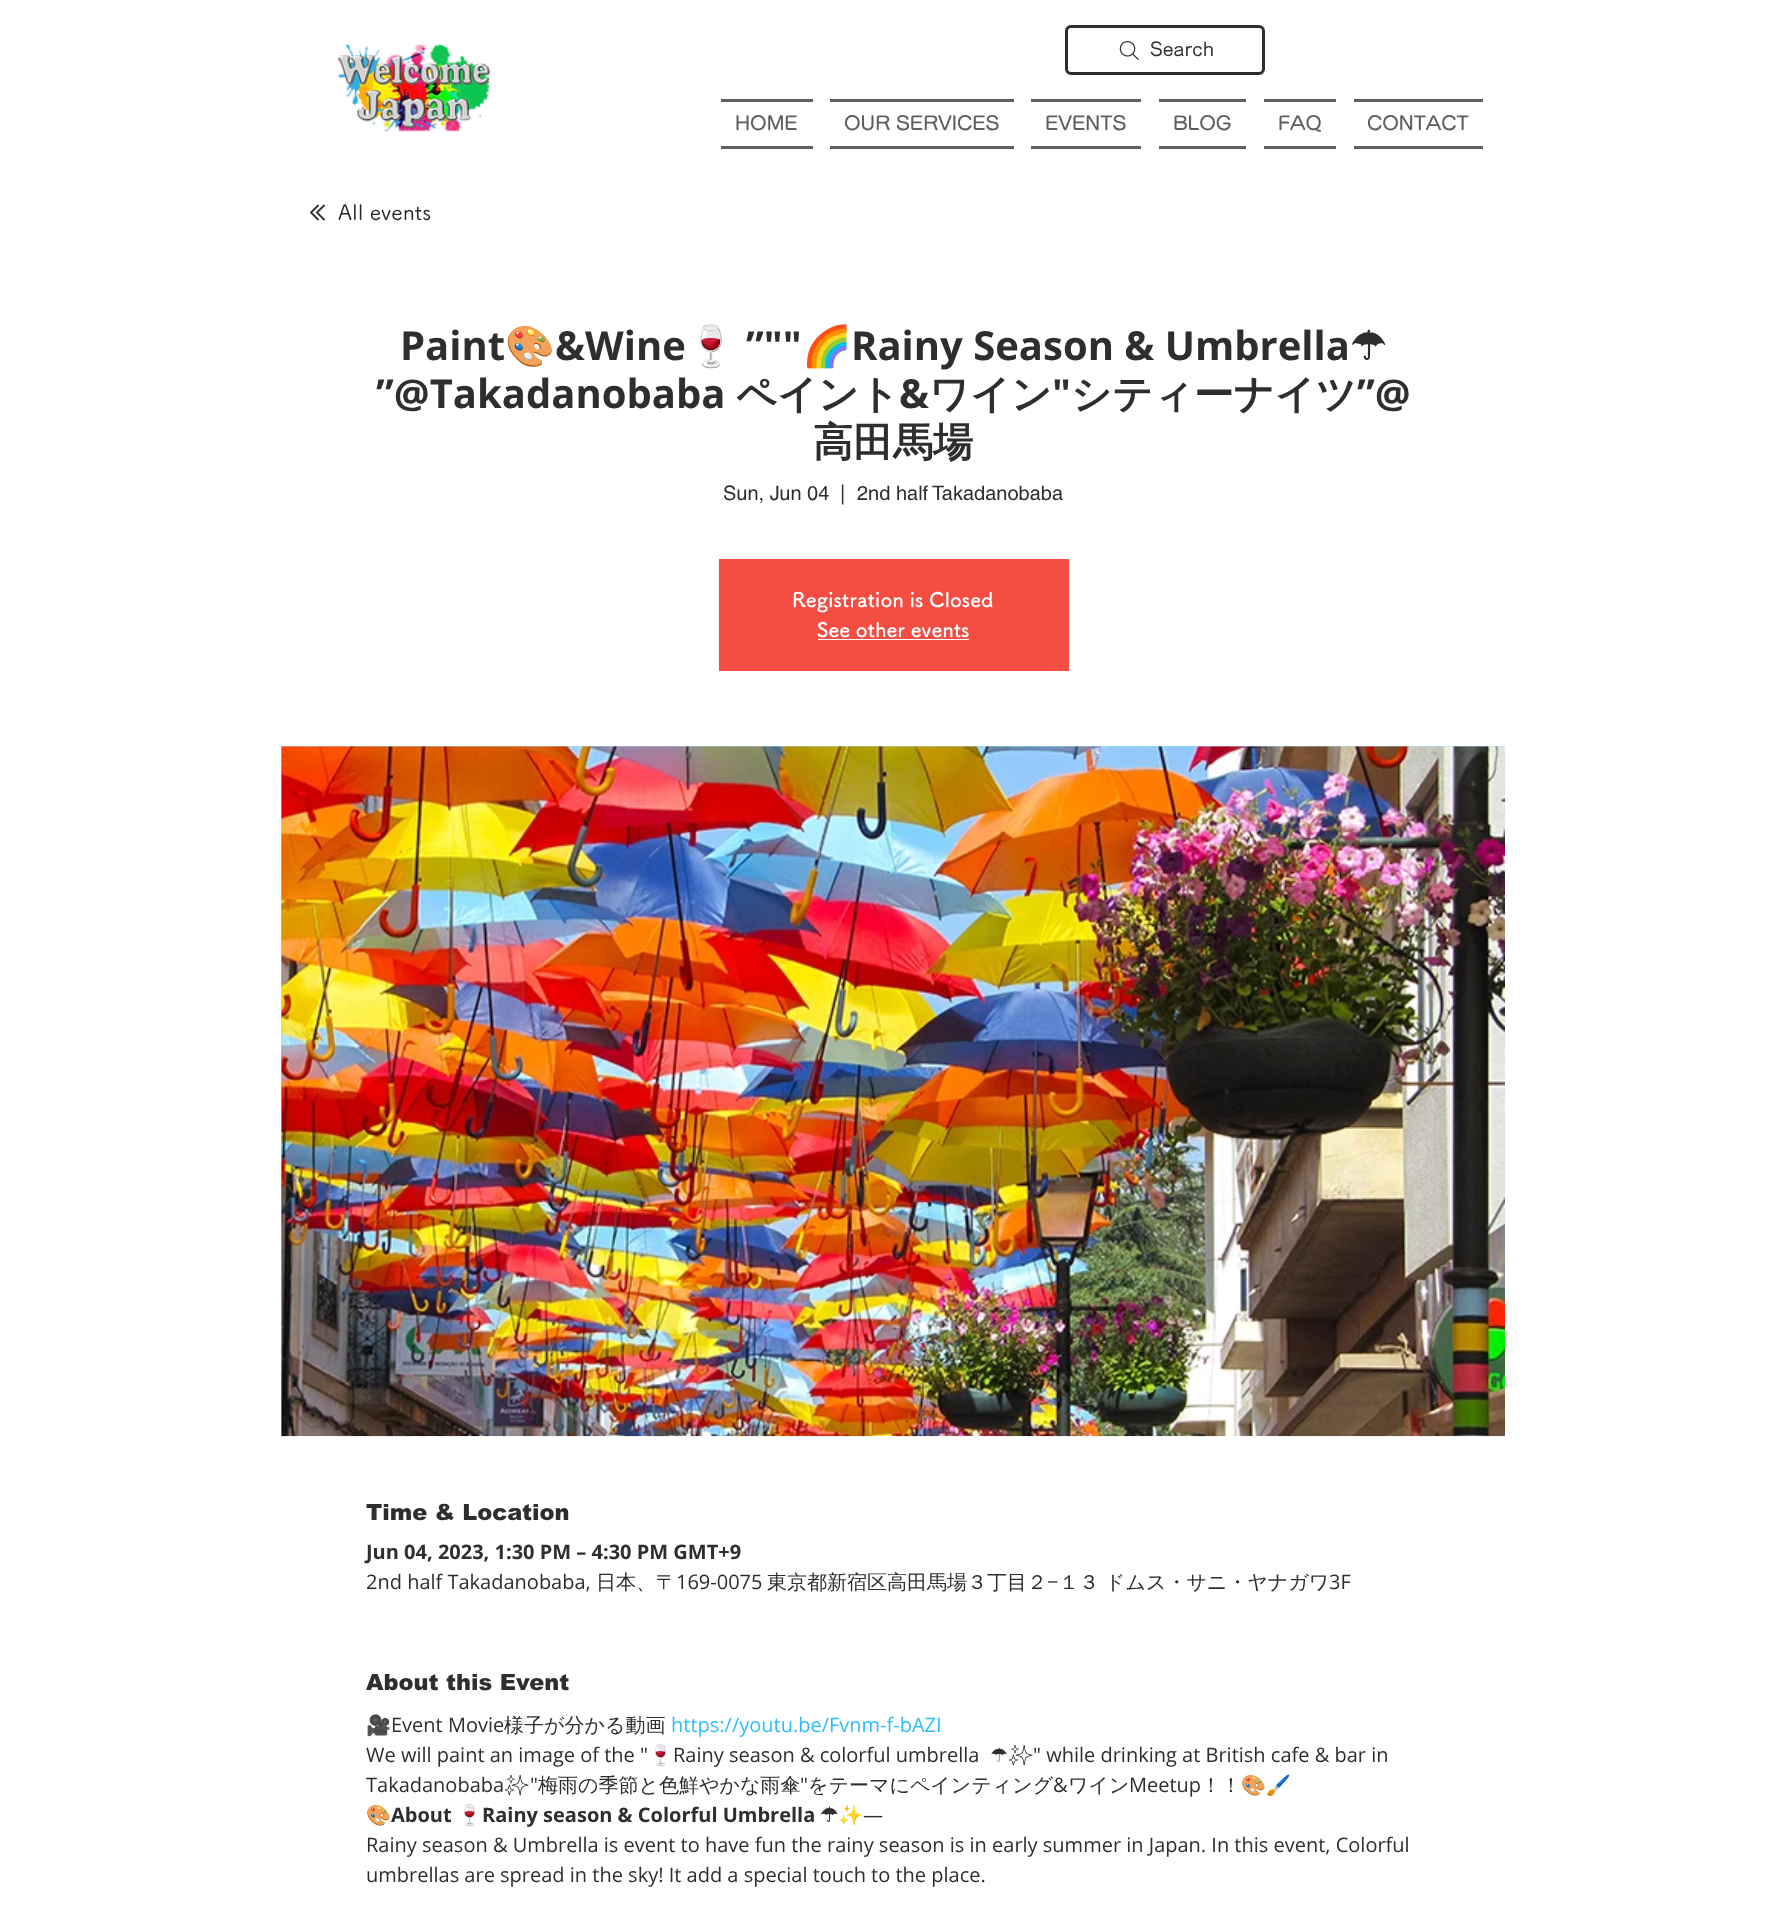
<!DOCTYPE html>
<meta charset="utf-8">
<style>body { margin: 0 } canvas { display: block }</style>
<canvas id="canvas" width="1786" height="1907"></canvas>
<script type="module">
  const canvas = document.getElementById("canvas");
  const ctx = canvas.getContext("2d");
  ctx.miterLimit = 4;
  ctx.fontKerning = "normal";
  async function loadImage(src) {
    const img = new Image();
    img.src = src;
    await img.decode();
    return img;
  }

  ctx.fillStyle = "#ffffff";
  ctx.fillRect(0, 0, 1786, 1907);
  ctx.drawImage(await loadImage("img1.png"), 337, 43, 154, 89);
  ctx.beginPath();
  ctx.roundRect(1066.5, 26.5, 197, 47, 4.5);
  ctx.strokeStyle = "#2f2e2e";
  ctx.lineWidth = 3;
  ctx.stroke();
  ctx.drawImage(await loadImage("img2.png"), 1119, 41, 20, 19);
  ctx.font = "500 18.75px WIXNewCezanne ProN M";
  ctx.fillStyle = "#2f2e2e";
  ctx.fillText("Search", 1150, 56);
  ctx.fillStyle = "#605e5e";
  ctx.fillRect(721, 99, 92, 3);
  ctx.fillRect(721, 146, 92, 3);
  ctx.font = "600 18.75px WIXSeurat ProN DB";
  ctx.fillText("HOME", 735, 130);
  ctx.fillRect(830, 99, 184, 3);
  ctx.fillRect(830, 146, 184, 3);
  ctx.fillText("OUR SERVICES", 844, 130);
  ctx.fillRect(1031, 99, 110, 3);
  ctx.fillRect(1031, 146, 110, 3);
  ctx.fillText("EVENTS", 1045, 130);
  ctx.fillRect(1159, 99, 87, 3);
  ctx.fillRect(1159, 146, 87, 3);
  ctx.fillText("BLOG", 1173, 130);
  ctx.fillRect(1264, 99, 72, 3);
  ctx.fillRect(1264, 146, 72, 3);
  ctx.fillText("FAQ", 1278, 130);
  ctx.fillRect(1354, 99, 129, 3);
  ctx.fillRect(1354, 146, 129, 3);
  ctx.fillText("CONTACT", 1367, 130);
  ctx.drawImage(await loadImage("img3.png"), 310, 204, 15, 17);
  ctx.font = "500 21.25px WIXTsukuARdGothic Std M";
  ctx.fillStyle = "#282626";
  ctx.fillText("All events", 338, 220);
  ctx.font = "bold 40px Open Sans";
  ctx.fillStyle = "#2f2e2e";
  ctx.fillText("Paint", 400, 360);
  ctx.font = "bold 40px Noto Color Emoji";
  ctx.fillText("🎨", 505, 360);
  ctx.font = "bold 40px Open Sans";
  ctx.fillText("&Wine", 555, 360);
  ctx.font = "bold 40px Noto Color Emoji";
  ctx.fillText("🍷", 686, 360);
  ctx.font = "bold 40px Open Sans";
  ctx.fillText("”\"\"", 746, 360);
  ctx.font = "bold 40px Noto Color Emoji";
  ctx.fillText("🌈", 802, 360);
  ctx.font = "bold 40px Open Sans";
  ctx.fillText("Rainy Season & Umbrella", 851, 360);
  ctx.font = "bold 40px DejaVu Sans";
  ctx.fillText("☂", 1350, 360);
  ctx.font = "bold 40px Open Sans";
  ctx.fillText("”@Takadanobaba", 376, 408);
  ctx.font = "bold 40px WenQuanYi Zen Hei";
  ctx.fillText("ペイント", 736, 408);
  ctx.font = "bold 40px Open Sans";
  ctx.fillText("&", 899, 408);
  ctx.font = "bold 40px WenQuanYi Zen Hei";
  ctx.fillText("ワイン", 929, 408);
  ctx.font = "bold 40px Open Sans";
  ctx.fillText("\"", 1052, 408);
  ctx.font = "bold 40px WenQuanYi Zen Hei";
  ctx.fillText("シティーナイツ", 1071, 408);
  ctx.font = "bold 40px Open Sans";
  ctx.fillText("”@", 1357, 408);
  ctx.font = "bold 40px WenQuanYi Zen Hei";
  ctx.fillText("高田馬場", 813, 456);
  ctx.font = "20px helvetica";
  ctx.fillText("Sun, Jun 04", 723, 500);
  ctx.fillText("|", 840, 500);
  ctx.fillText("2nd half", 857, 500);
  ctx.fillText("Takadanobaba", 932, 500);
  ctx.fillStyle = "#f64d43";
  ctx.fillRect(719, 559, 350, 112);
  ctx.font = "bold 20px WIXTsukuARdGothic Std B";
  ctx.fillStyle = "#ffffff";
  ctx.fillText("Registration is Closed", 792, 607);
  ctx.fillText("See other events", 817, 637);
  ctx.fillRect(818, 639, 151, 1);
  ctx.fillStyle = "#97deff";
  ctx.fillRect(281, 746, 1224, 690);
  ctx.drawImage(await loadImage("img4.png"), 281, 746, 1224, 691);
  ctx.font = "900 22.5px arial";
  ctx.fillStyle = "#2f2e2e";
  ctx.fillText("Time & Location", 366, 1520);
  ctx.font = "bold 20px Open Sans";
  ctx.fillText("Jun 04, 2023, 1:30 PM – 4:30 PM GMT+9", 366, 1559);
  ctx.font = "20px Open Sans";
  ctx.fillText("2nd half Takadanobaba,", 366, 1589);
  ctx.font = "500 20px WenQuanYi Zen Hei";
  ctx.fillText("日本、〒", 596, 1589);
  ctx.font = "20px Open Sans";
  ctx.fillText("169-0075", 676, 1589);
  ctx.font = "500 20px WenQuanYi Zen Hei";
  ctx.fillText("東京都新宿区高田馬場３丁目２", 767, 1589);
  ctx.font = "20px Open Sans";
  ctx.fillText("−", 1047, 1589);
  ctx.font = "500 20px WenQuanYi Zen Hei";
  ctx.fillText("１３ ドムス・サニ・ヤナガワ", 1059, 1589);
  ctx.font = "20px Open Sans";
  ctx.fillText("3F", 1329, 1589);
  ctx.font = "900 22.5px arial";
  ctx.fillText("About this Event", 366, 1690);
  ctx.font = "20px Noto Color Emoji";
  ctx.fillText("🎥", 366, 1732);
  ctx.font = "20px Open Sans";
  ctx.fillText("Event Movie", 391, 1732);
  ctx.font = "500 20px WenQuanYi Zen Hei";
  ctx.fillText("様子が分かる動画", 504, 1732);
  ctx.font = "20px Open Sans";
  ctx.fillStyle = "#30bdff";
  ctx.fillText("https://youtu.be/Fvnm-f-bAZI", 671, 1732);
  ctx.fillStyle = "#2f2e2e";
  ctx.fillText("We will paint an image of the \"", 366, 1762);
  ctx.font = "20px Noto Color Emoji";
  ctx.fillText("🍷", 648, 1762);
  ctx.font = "20px Open Sans";
  ctx.fillText("Rainy season & colorful umbrella", 673, 1762);
  ctx.font = "20px DejaVu Sans";
  ctx.fillText("☂", 990, 1762);
  ctx.font = "20px Noto Emoji";
  ctx.fillText("✨", 1008, 1762);
  ctx.font = "20px Open Sans";
  ctx.fillText("\" while drinking at British cafe & bar in", 1033, 1762);
  ctx.fillText("Takadanobaba", 366, 1792);
  ctx.font = "20px Noto Emoji";
  ctx.fillText("✨", 504, 1792);
  ctx.font = "20px Open Sans";
  ctx.fillText("\"", 530, 1792);
  ctx.font = "500 20px WenQuanYi Zen Hei";
  ctx.fillText("梅雨の季節と色鮮やかな雨傘", 538, 1792);
  ctx.font = "20px Open Sans";
  ctx.fillText("\"", 800, 1792);
  ctx.font = "500 20px WenQuanYi Zen Hei";
  ctx.fillText("をテーマにペインティング", 808, 1792);
  ctx.font = "20px Open Sans";
  ctx.fillText("&", 1053, 1792);
  ctx.font = "500 20px WenQuanYi Zen Hei";
  ctx.fillText("ワイン", 1068, 1792);
  ctx.font = "20px Open Sans";
  ctx.fillText("Meetup", 1129, 1792);
  ctx.font = "500 20px WenQuanYi Zen Hei";
  ctx.fillText("！！", 1201, 1792);
  ctx.font = "20px Noto Color Emoji";
  ctx.fillText("🎨🖌", 1241, 1792);
  ctx.font = "bold 20px Noto Color Emoji";
  ctx.fillText("🎨", 366, 1822);
  ctx.font = "bold 20px Open Sans";
  ctx.fillText("About", 391, 1822);
  ctx.font = "bold 20px Noto Color Emoji";
  ctx.fillText("🍷", 457, 1822);
  ctx.font = "bold 20px Open Sans";
  ctx.fillText("Rainy season & Colorful Umbrella", 482, 1822);
  ctx.font = "bold 20px DejaVu Sans";
  ctx.fillText("☂", 820, 1822);
  ctx.font = "bold 20px Noto Color Emoji";
  ctx.fillText("✨", 838, 1822);
  ctx.font = "20px Open Sans";
  ctx.fillText("—", 863, 1822);
  ctx.fillText("Rainy season & Umbrella is event to have fun the rainy season is in early summer in Japan. In this event, Colorful", 366, 1852);
  ctx.fillText("umbrellas are spread in the sky! It add a special touch to the place.", 366, 1882);
</script>
